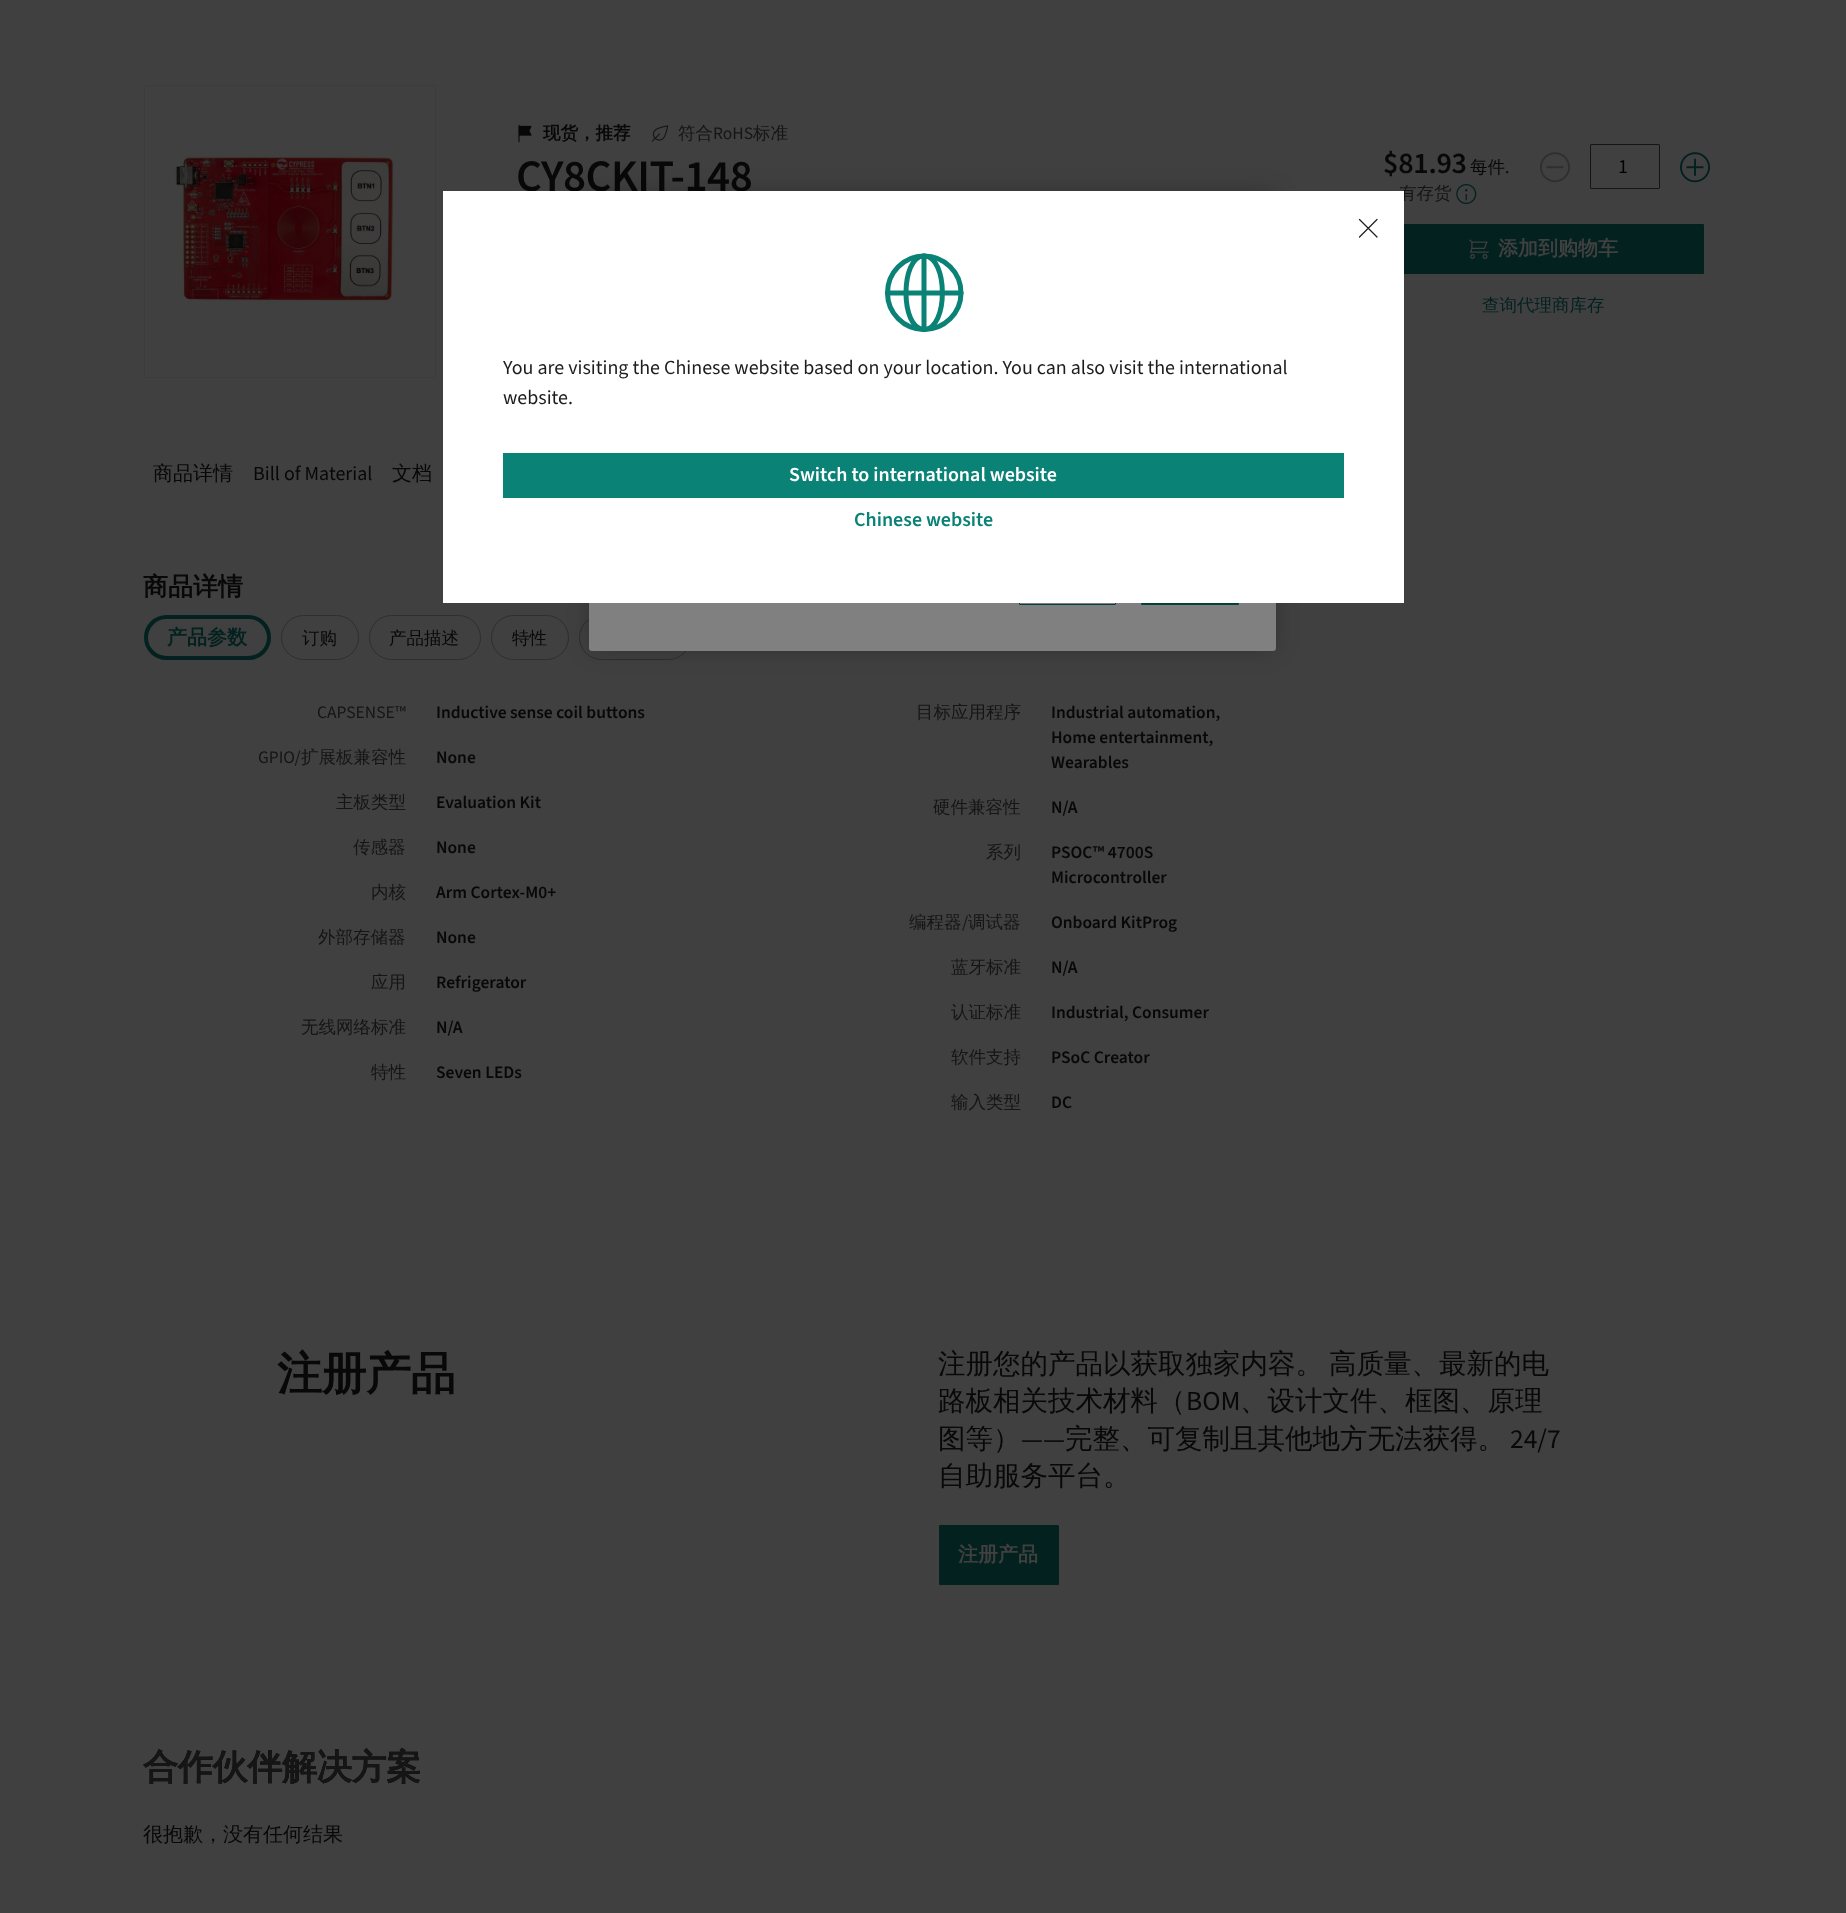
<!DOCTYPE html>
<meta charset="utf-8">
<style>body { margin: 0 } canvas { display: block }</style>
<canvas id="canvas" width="1846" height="1913"></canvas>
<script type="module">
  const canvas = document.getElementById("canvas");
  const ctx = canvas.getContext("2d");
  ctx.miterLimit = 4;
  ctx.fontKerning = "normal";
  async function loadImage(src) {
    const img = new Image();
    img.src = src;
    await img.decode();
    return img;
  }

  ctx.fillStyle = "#404040";
  ctx.fillRect(0, 0, 1846, 1913);
  ctx.beginPath();
  ctx.roundRect(144.5, 85.5, 291, 292, 0.5);
  ctx.strokeStyle = "#3c3c3c";
  ctx.stroke();
  ctx.drawImage(await loadImage("img1.png"), 175, 155, 220, 147);
  ctx.drawImage(await loadImage("img2.png"), 518, 124, 14, 19);
  ctx.font = "bold 17.5px WenQuanYi Zen Hei";
  ctx.fillStyle = "#080808";
  ctx.fillText("现货，推荐", 543, 139);
  ctx.drawImage(await loadImage("img3.png"), 651, 125, 18, 17);
  ctx.font = "500 17.5px WenQuanYi Zen Hei";
  ctx.fillStyle = "#161515";
  ctx.fillText("符合", 678, 139);
  ctx.font = "17.5px 'Source Sans 3'";
  ctx.fillText("RoHS", 713, 139);
  ctx.font = "500 17.5px WenQuanYi Zen Hei";
  ctx.fillText("标准", 753, 139);
  ctx.letterSpacing = "-0.5px";
  ctx.font = "600 45px 'Source Sans 3'";
  ctx.fillStyle = "#080808";
  ctx.fillText("CY8CKIT-148", 516, 191);
  ctx.letterSpacing = "-0.25px";
  ctx.font = "600 30px 'Source Sans 3'";
  ctx.fillText("$81.93", 1383, 173);
  ctx.letterSpacing = "0px";
  ctx.font = "500 17.5px WenQuanYi Zen Hei";
  ctx.fillText("每件", 1470, 173);
  ctx.font = "17.5px 'Source Sans 3'";
  ctx.fillText(".", 1505, 173);
  ctx.font = "500 17.5px WenQuanYi Zen Hei";
  ctx.fillStyle = "#161515";
  ctx.fillText("有存货", 1399, 199);
  ctx.drawImage(await loadImage("img4.png"), 1456, 184, 21, 20);
  ctx.drawImage(await loadImage("img5.png"), 1540, 152, 30, 31);
  ctx.beginPath();
  ctx.roundRect(1590.5, 144.5, 69, 44, 0.5);
  ctx.strokeStyle = "#161515";
  ctx.stroke();
  ctx.font = "20px 'Source Sans 3'";
  ctx.fillStyle = "#000000";
  ctx.fillText("1", 1618, 173);
  ctx.drawImage(await loadImage("img6.png"), 1680, 152, 30, 31);
  ctx.fillStyle = "#03211e";
  ctx.beginPath();
  ctx.roundRect(1384, 224, 320, 50, 1);
  ctx.fill();
  ctx.drawImage(await loadImage("img7.png"), 1469, 239, 20, 20);
  ctx.font = "bold 20px WenQuanYi Zen Hei";
  ctx.fillStyle = "#404040";
  ctx.fillText("添加到购物车", 1498, 255);
  ctx.font = "500 17.5px WenQuanYi Zen Hei";
  ctx.fillStyle = "#03211e";
  ctx.fillText("查询代理商库存", 1482, 311);
  ctx.font = "500 20px WenQuanYi Zen Hei";
  ctx.fillStyle = "#080808";
  ctx.fillText("商品详情", 153, 480);
  ctx.font = "20px 'Source Sans 3'";
  ctx.fillText("Bill of Material", 253, 480);
  ctx.font = "500 20px WenQuanYi Zen Hei";
  ctx.fillText("文档", 392, 480);
  ctx.font = "bold 25px WenQuanYi Zen Hei";
  ctx.fillText("商品详情", 143, 595);
  ctx.beginPath();
  ctx.roundRect(146, 617, 123, 41, 20.5);
  ctx.strokeStyle = "#03211e";
  ctx.lineWidth = 4;
  ctx.stroke();
  ctx.font = "bold 20px WenQuanYi Zen Hei";
  ctx.fillStyle = "#03211e";
  ctx.fillText("产品参数", 167, 644);
  ctx.beginPath();
  ctx.roundRect(281.5, 615.5, 77, 44, 22);
  ctx.strokeStyle = "#302f2f";
  ctx.lineWidth = 1;
  ctx.stroke();
  ctx.font = "500 17.5px WenQuanYi Zen Hei";
  ctx.fillStyle = "#080808";
  ctx.fillText("订购", 302, 644);
  ctx.beginPath();
  ctx.roundRect(369.5, 615.5, 111, 44, 22);
  ctx.stroke();
  ctx.fillText("产品描述", 389, 644);
  ctx.beginPath();
  ctx.roundRect(491.5, 615.5, 77, 44, 22);
  ctx.stroke();
  ctx.fillText("特性", 512, 644);
  ctx.beginPath();
  ctx.roundRect(579.5, 615.5, 111, 44, 22);
  ctx.stroke();
  ctx.font = "17.5px 'Source Sans 3'";
  ctx.fillStyle = "#161515";
  ctx.fillText("CAPSENSE™", 317, 718);
  ctx.font = "600 17.5px 'Source Sans 3'";
  ctx.fillStyle = "#080808";
  ctx.fillText("Inductive sense coil buttons", 436, 718);
  ctx.font = "500 17.5px WenQuanYi Zen Hei";
  ctx.fillStyle = "#161515";
  ctx.fillText("目标应用程序", 916, 718);
  ctx.font = "600 17.5px 'Source Sans 3'";
  ctx.fillStyle = "#080808";
  ctx.fillText("Industrial automation,", 1051, 718);
  ctx.fillText("Home entertainment,", 1051, 743);
  ctx.fillText("Wearables", 1051, 768);
  ctx.font = "17.5px 'Source Sans 3'";
  ctx.fillStyle = "#161515";
  ctx.fillText("GPIO/", 258, 763);
  ctx.font = "500 17.5px WenQuanYi Zen Hei";
  ctx.fillText("扩展板兼容性", 301, 763);
  ctx.font = "600 17.5px 'Source Sans 3'";
  ctx.fillStyle = "#080808";
  ctx.fillText("None", 436, 763);
  ctx.font = "500 17.5px WenQuanYi Zen Hei";
  ctx.fillStyle = "#161515";
  ctx.fillText("主板类型", 336, 808);
  ctx.font = "600 17.5px 'Source Sans 3'";
  ctx.fillStyle = "#080808";
  ctx.fillText("Evaluation Kit", 436, 808);
  ctx.font = "500 17.5px WenQuanYi Zen Hei";
  ctx.fillStyle = "#161515";
  ctx.fillText("硬件兼容性", 933, 813);
  ctx.font = "600 17.5px 'Source Sans 3'";
  ctx.fillStyle = "#080808";
  ctx.fillText("N/A", 1051, 813);
  ctx.font = "500 17.5px WenQuanYi Zen Hei";
  ctx.fillStyle = "#161515";
  ctx.fillText("传感器", 353, 853);
  ctx.font = "600 17.5px 'Source Sans 3'";
  ctx.fillStyle = "#080808";
  ctx.fillText("None", 436, 853);
  ctx.font = "500 17.5px WenQuanYi Zen Hei";
  ctx.fillStyle = "#161515";
  ctx.fillText("系列", 986, 858);
  ctx.font = "600 17.5px 'Source Sans 3'";
  ctx.fillStyle = "#080808";
  ctx.fillText("PSOC™ 4700S", 1051, 858);
  ctx.fillText("Microcontroller", 1051, 883);
  ctx.font = "500 17.5px WenQuanYi Zen Hei";
  ctx.fillStyle = "#161515";
  ctx.fillText("内核", 371, 898);
  ctx.font = "600 17.5px 'Source Sans 3'";
  ctx.fillStyle = "#080808";
  ctx.fillText("Arm Cortex-M0+", 436, 898);
  ctx.font = "500 17.5px WenQuanYi Zen Hei";
  ctx.fillStyle = "#161515";
  ctx.fillText("编程器", 909, 928);
  ctx.font = "17.5px 'Source Sans 3'";
  ctx.fillText("/", 962, 928);
  ctx.font = "500 17.5px WenQuanYi Zen Hei";
  ctx.fillText("调试器", 968, 928);
  ctx.font = "600 17.5px 'Source Sans 3'";
  ctx.fillStyle = "#080808";
  ctx.fillText("Onboard KitProg", 1051, 928);
  ctx.font = "500 17.5px WenQuanYi Zen Hei";
  ctx.fillStyle = "#161515";
  ctx.fillText("外部存储器", 318, 943);
  ctx.font = "600 17.5px 'Source Sans 3'";
  ctx.fillStyle = "#080808";
  ctx.fillText("None", 436, 943);
  ctx.font = "500 17.5px WenQuanYi Zen Hei";
  ctx.fillStyle = "#161515";
  ctx.fillText("蓝牙标准", 951, 973);
  ctx.font = "600 17.5px 'Source Sans 3'";
  ctx.fillStyle = "#080808";
  ctx.fillText("N/A", 1051, 973);
  ctx.font = "500 17.5px WenQuanYi Zen Hei";
  ctx.fillStyle = "#161515";
  ctx.fillText("应用", 371, 988);
  ctx.font = "600 17.5px 'Source Sans 3'";
  ctx.fillStyle = "#080808";
  ctx.fillText("Refrigerator", 436, 988);
  ctx.font = "500 17.5px WenQuanYi Zen Hei";
  ctx.fillStyle = "#161515";
  ctx.fillText("认证标准", 951, 1018);
  ctx.font = "600 17.5px 'Source Sans 3'";
  ctx.fillStyle = "#080808";
  ctx.fillText("Industrial, Consumer", 1051, 1018);
  ctx.font = "500 17.5px WenQuanYi Zen Hei";
  ctx.fillStyle = "#161515";
  ctx.fillText("无线网络标准", 301, 1033);
  ctx.font = "600 17.5px 'Source Sans 3'";
  ctx.fillStyle = "#080808";
  ctx.fillText("N/A", 436, 1033);
  ctx.font = "500 17.5px WenQuanYi Zen Hei";
  ctx.fillStyle = "#161515";
  ctx.fillText("软件支持", 951, 1063);
  ctx.font = "600 17.5px 'Source Sans 3'";
  ctx.fillStyle = "#080808";
  ctx.fillText("PSoC Creator", 1051, 1063);
  ctx.font = "500 17.5px WenQuanYi Zen Hei";
  ctx.fillStyle = "#161515";
  ctx.fillText("特性", 371, 1078);
  ctx.font = "600 17.5px 'Source Sans 3'";
  ctx.fillStyle = "#080808";
  ctx.fillText("Seven LEDs", 436, 1078);
  ctx.font = "500 17.5px WenQuanYi Zen Hei";
  ctx.fillStyle = "#161515";
  ctx.fillText("输入类型", 951, 1108);
  ctx.font = "600 17.5px 'Source Sans 3'";
  ctx.fillStyle = "#080808";
  ctx.fillText("DC", 1051, 1108);
  ctx.letterSpacing = "-0.5px";
  ctx.font = "bold 45px WenQuanYi Zen Hei";
  ctx.fillText("注册产品", 277, 1389);
  ctx.letterSpacing = "0px";
  ctx.font = "500 27.5px WenQuanYi Zen Hei";
  ctx.fillText("注册您的产品以获取独家内容。", 938, 1373);
  ctx.fillText("高质量、最新的电", 1329, 1373);
  ctx.fillText("路板相关技术材料（", 938, 1410);
  ctx.font = "27.5px 'Source Sans 3'";
  ctx.fillText("BOM", 1186, 1410);
  ctx.font = "500 27.5px WenQuanYi Zen Hei";
  ctx.fillText("、设计文件、框图、原理", 1240, 1410);
  ctx.fillText("图等）", 938, 1448);
  ctx.font = "27.5px 'Source Sans 3'";
  ctx.fillText("——", 1021, 1448);
  ctx.font = "500 27.5px WenQuanYi Zen Hei";
  ctx.fillText("完整、可复制且其他地方无法获得。", 1065, 1448);
  ctx.font = "27.5px 'Source Sans 3'";
  ctx.fillText("24/7", 1510, 1448);
  ctx.font = "500 27.5px WenQuanYi Zen Hei";
  ctx.fillText("自助服务平台。", 938, 1485);
  ctx.fillStyle = "#03211e";
  ctx.beginPath();
  ctx.roundRect(939, 1525, 120, 60, 1);
  ctx.fill();
  ctx.font = "bold 20px WenQuanYi Zen Hei";
  ctx.fillStyle = "#404040";
  ctx.fillText("注册产品", 958, 1561);
  ctx.letterSpacing = "-0.25px";
  ctx.font = "bold 35px WenQuanYi Zen Hei";
  ctx.fillStyle = "#080808";
  ctx.fillText("合作伙伴解决方案", 143, 1779);
  ctx.letterSpacing = "0px";
  ctx.font = "500 20px WenQuanYi Zen Hei";
  ctx.fillText("很抱歉，没有任何结果", 143, 1841);
  ctx.letterSpacing = "-0.25px";
  ctx.font = "bold 35px WenQuanYi Zen Hei";
  ctx.fillStyle = "#161515";
  ctx.fillText("合作伙伴解决方案", 143, 1779);
  ctx.fillStyle = "rgba(0, 0, 0, 0.2)";
  ctx.filter = "blur(11px)";
  ctx.beginPath();
  ctx.roundRect(589, 191, 687, 460, 3);
  ctx.fill();
  ctx.filter = "none";
  ctx.fillStyle = "#808080";
  ctx.beginPath();
  ctx.roundRect(589, 191, 687, 460, 3);
  ctx.fill();
  ctx.beginPath();
  ctx.roundRect(1019.5, 555.5, 96, 49, 0.5);
  ctx.strokeStyle = "#05413b";
  ctx.stroke();
  ctx.fillStyle = "#05413b";
  ctx.beginPath();
  ctx.roundRect(1141.5, 555.5, 97, 49, 0.5);
  ctx.fill();
  ctx.stroke();
  ctx.fillStyle = "#ffffff";
  ctx.fillRect(443, 191, 961, 412);
  ctx.beginPath();
  ctx.moveTo(1377, 219.5);
  ctx.lineTo(1359.5, 237);
  ctx.moveTo(1377, 237);
  ctx.lineTo(1359.5, 219.5);
  ctx.strokeStyle = "#1d1d1d";
  ctx.lineWidth = 1.2;
  ctx.lineCap = "round";
  ctx.lineJoin = "round";
  ctx.stroke();
  ctx.beginPath();
  ctx.moveTo(924, 256);
  ctx.lineTo(924, 329.5);
  ctx.strokeStyle = "#0a8276";
  ctx.lineWidth = 5;
  ctx.stroke();
  ctx.beginPath();
  ctx.moveTo(887.5, 293);
  ctx.lineTo(961, 293);
  ctx.stroke();
  ctx.beginPath();
  ctx.moveTo(924, 329.5);
  ctx.bezierCurveTo(948.5, 329.5, 948.5, 256, 924, 256);
  ctx.bezierCurveTo(900, 256, 900, 329.5, 924, 329.5);
  ctx.closePath();
  ctx.stroke();
  ctx.beginPath();
  ctx.moveTo(924, 329.5);
  ctx.bezierCurveTo(944.5, 329.5, 961, 313, 961, 293);
  ctx.bezierCurveTo(961, 272.5, 944.5, 256, 924, 256);
  ctx.bezierCurveTo(904, 256, 887.5, 272.5, 887.5, 293);
  ctx.bezierCurveTo(887.5, 313, 904, 329.5, 924, 329.5);
  ctx.closePath();
  ctx.stroke();
  ctx.letterSpacing = "0px";
  ctx.font = "20px 'Source Sans 3'";
  ctx.fillStyle = "#1d1d1d";
  ctx.fillText("You are visiting the Chinese website based on your location. You can also visit the international", 503, 374);
  ctx.fillText("website.", 503, 404);
  ctx.fillStyle = "#0a8276";
  ctx.fillRect(503, 453, 841, 45);
  ctx.font = "600 20px 'Source Sans 3'";
  ctx.fillStyle = "#ffffff";
  ctx.fillText("Switch to international website", 789, 481);
  ctx.fillStyle = "#0a8276";
  ctx.fillText("Chinese website", 854, 526);
</script>
